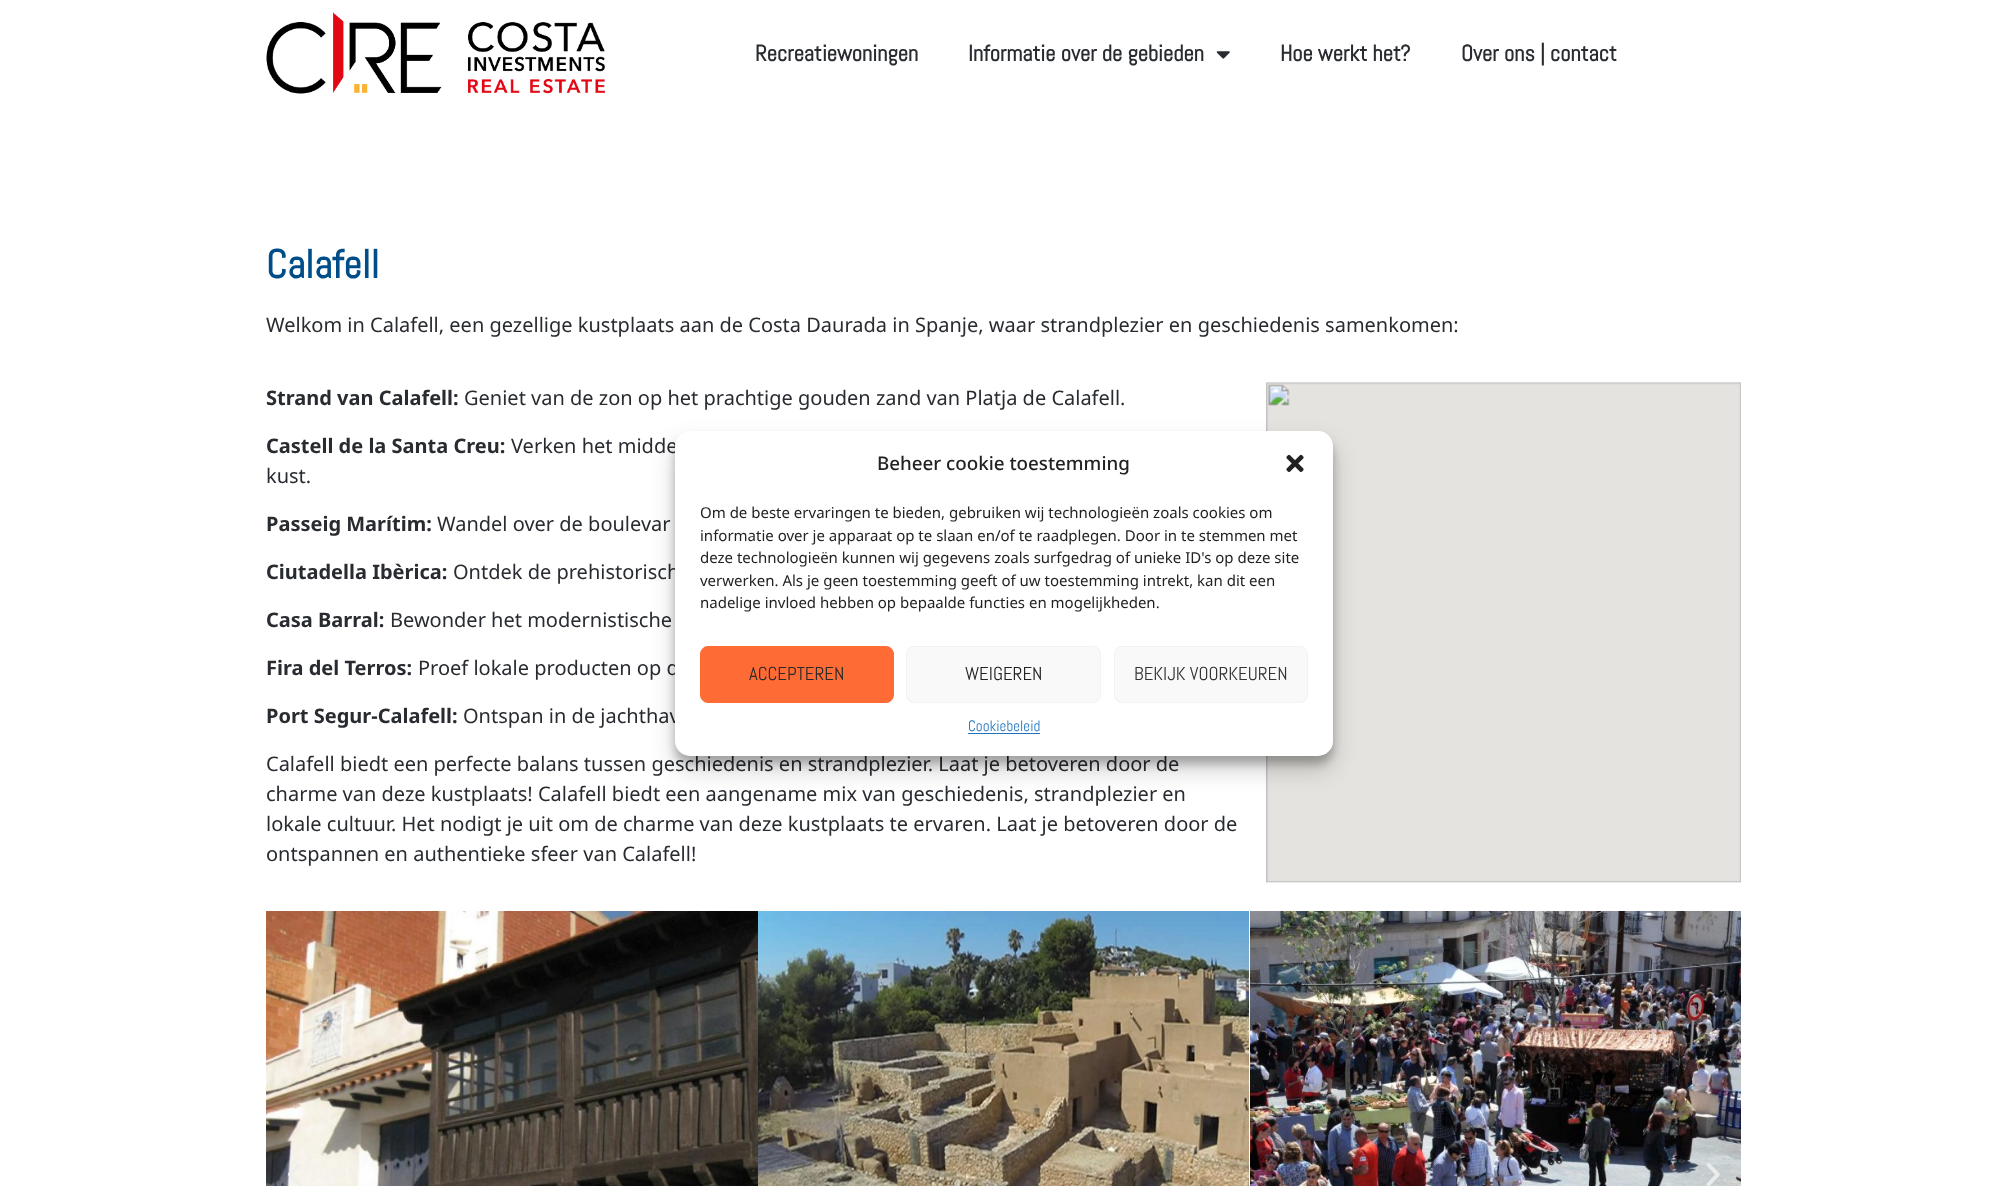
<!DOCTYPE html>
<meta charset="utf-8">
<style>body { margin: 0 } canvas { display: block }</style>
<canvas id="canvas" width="2007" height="1186"></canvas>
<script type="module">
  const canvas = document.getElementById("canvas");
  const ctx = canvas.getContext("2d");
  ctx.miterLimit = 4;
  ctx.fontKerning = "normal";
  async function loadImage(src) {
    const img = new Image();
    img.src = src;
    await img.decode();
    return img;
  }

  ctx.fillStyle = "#ffffff";
  ctx.fillRect(0, 0, 2007, 1186);
  ctx.drawImage(await loadImage("img1.png"), 266, 12, 339, 82);
  ctx.font = "bold 22.5px Abel";
  ctx.fillStyle = "#282b30";
  ctx.fillText("Recreatiewoningen", 755, 61);
  ctx.fillText("Informatie over de gebieden", 968, 61);
  ctx.drawImage(await loadImage("img2.png"), 1216, 51, 14, 8);
  ctx.fillText("Hoe werkt het?", 1280, 61);
  ctx.fillText("Over ons | contact", 1461, 61);
  ctx.font = "bold 40px Abel";
  ctx.fillStyle = "#004e89";
  ctx.fillText("Calafell", 266, 278);
  ctx.font = "20px Noto Sans";
  ctx.fillStyle = "#282b30";
  ctx.fillText("Welkom in Calafell, een gezellige kustplaats aan de Costa Daurada in Spanje, waar strandplezier en geschiedenis samenkomen:", 266, 332);
  ctx.font = "bold 20px Noto Sans";
  ctx.fillText("Strand van Calafell:", 266, 405);
  ctx.font = "20px Noto Sans";
  ctx.fillText("Geniet van de zon op het prachtige gouden zand van Platja de Calafell.", 464, 405);
  ctx.font = "bold 20px Noto Sans";
  ctx.fillText("Castell de la Santa Creu:", 266, 453);
  ctx.font = "20px Noto Sans";
  ctx.fillText("Verken het midde", 511, 453);
  ctx.fillText("kust.", 266, 483);
  ctx.font = "bold 20px Noto Sans";
  ctx.fillText("Passeig Marítim:", 266, 531);
  ctx.font = "20px Noto Sans";
  ctx.fillText("Wandel over de boulevar", 437, 531);
  ctx.font = "bold 20px Noto Sans";
  ctx.fillText("Ciutadella Ibèrica:", 266, 579);
  ctx.font = "20px Noto Sans";
  ctx.fillText("Ontdek de prehistorisch", 453, 579);
  ctx.font = "bold 20px Noto Sans";
  ctx.fillText("Casa Barral:", 266, 627);
  ctx.font = "20px Noto Sans";
  ctx.fillText("Bewonder het modernistische", 390, 627);
  ctx.font = "bold 20px Noto Sans";
  ctx.fillText("Fira del Terros:", 266, 675);
  ctx.font = "20px Noto Sans";
  ctx.fillText("Proef lokale producten op d", 418, 675);
  ctx.font = "bold 20px Noto Sans";
  ctx.fillText("Port Segur-Calafell:", 266, 723);
  ctx.font = "20px Noto Sans";
  ctx.fillText("Ontspan in de jachthav", 463, 723);
  ctx.fillText("Calafell biedt een perfecte balans tussen geschiedenis en strandplezier. Laat je betoveren door de", 266, 771);
  ctx.fillText("charme van deze kustplaats! Calafell biedt een aangename mix van geschiedenis, strandplezier en", 266, 801);
  ctx.fillText("lokale cultuur. Het nodigt je uit om de charme van deze kustplaats te ervaren. Laat je betoveren door de", 266, 831);
  ctx.fillText("ontspannen en authentieke sfeer van Calafell!", 266, 861);
  ctx.drawImage(await loadImage("img3.png"), 1266, 382, 475, 501);
  ctx.drawImage(await loadImage("img4.png"), 266, 911, 492, 275);
  ctx.drawImage(await loadImage("img5.png"), 758, 911, 491, 275);
  ctx.drawImage(await loadImage("img6.png"), 1250, 911, 491, 275);
  ctx.drawImage(await loadImage("img7.png"), 287, 1163, 14, 23);
  ctx.drawImage(await loadImage("img8.png"), 1706, 1163, 14, 23);
  ctx.fillStyle = "rgba(0, 0, 0, 0.23)";
  ctx.filter = "blur(4px)";
  ctx.beginPath();
  ctx.roundRect(675, 439, 658, 325, 15);
  ctx.fill();
  ctx.filter = "none";
  ctx.fillStyle = "rgba(0, 0, 0, 0.19)";
  ctx.filter = "blur(12.5px)";
  ctx.beginPath();
  ctx.roundRect(675, 444, 658, 325, 15);
  ctx.fill();
  ctx.filter = "none";
  ctx.fillStyle = "#ffffff";
  ctx.beginPath();
  ctx.roundRect(675, 431, 658, 325, 15);
  ctx.fill();
  ctx.font = "500 18.75px Noto Sans";
  ctx.fillStyle = "#222222";
  ctx.fillText("Beheer cookie toestemming", 877, 470);
  ctx.drawImage(await loadImage("img9.png"), 1286, 454, 18, 18);
  ctx.font = "15px Noto Sans";
  ctx.fillText("Om de beste ervaringen te bieden, gebruiken wij technologieën zoals cookies om", 700, 518);
  ctx.fillText("informatie over je apparaat op te slaan en/of te raadplegen. Door in te stemmen met", 700, 541);
  ctx.fillText("deze technologieën kunnen wij gegevens zoals surfgedrag of unieke ID's op deze site", 700, 563);
  ctx.fillText("verwerken. Als je geen toestemming geeft of uw toestemming intrekt, kan dit een", 700, 586);
  ctx.fillText("nadelige invloed hebben op bepaalde functies en mogelijkheden.", 700, 608);
  ctx.fillStyle = "#ff6b35";
  ctx.beginPath();
  ctx.roundRect(700.5, 646.5, 193, 56, 7.5);
  ctx.fill();
  ctx.strokeStyle = "#ff6b35";
  ctx.stroke();
  ctx.font = "18.75px Abel";
  ctx.fillStyle = "#292929";
  ctx.fillText("ACCEPTEREN", 749, 680);
  ctx.fillStyle = "#f9f9f9";
  ctx.beginPath();
  ctx.roundRect(906.5, 646.5, 194, 56, 7.5);
  ctx.fill();
  ctx.strokeStyle = "#f2f2f2";
  ctx.stroke();
  ctx.fillStyle = "#222222";
  ctx.fillText("WEIGEREN", 965, 680);
  ctx.fillStyle = "#f9f9f9";
  ctx.beginPath();
  ctx.roundRect(1114.5, 646.5, 193, 56, 7.5);
  ctx.fill();
  ctx.stroke();
  ctx.fillStyle = "#333333";
  ctx.fillText("BEKIJK VOORKEUREN", 1134, 680);
  ctx.font = "15px Abel";
  ctx.fillStyle = "#1e73be";
  ctx.fillText("Cookiebeleid", 968, 731);
  ctx.fillRect(968, 733, 72, 1);
</script>
